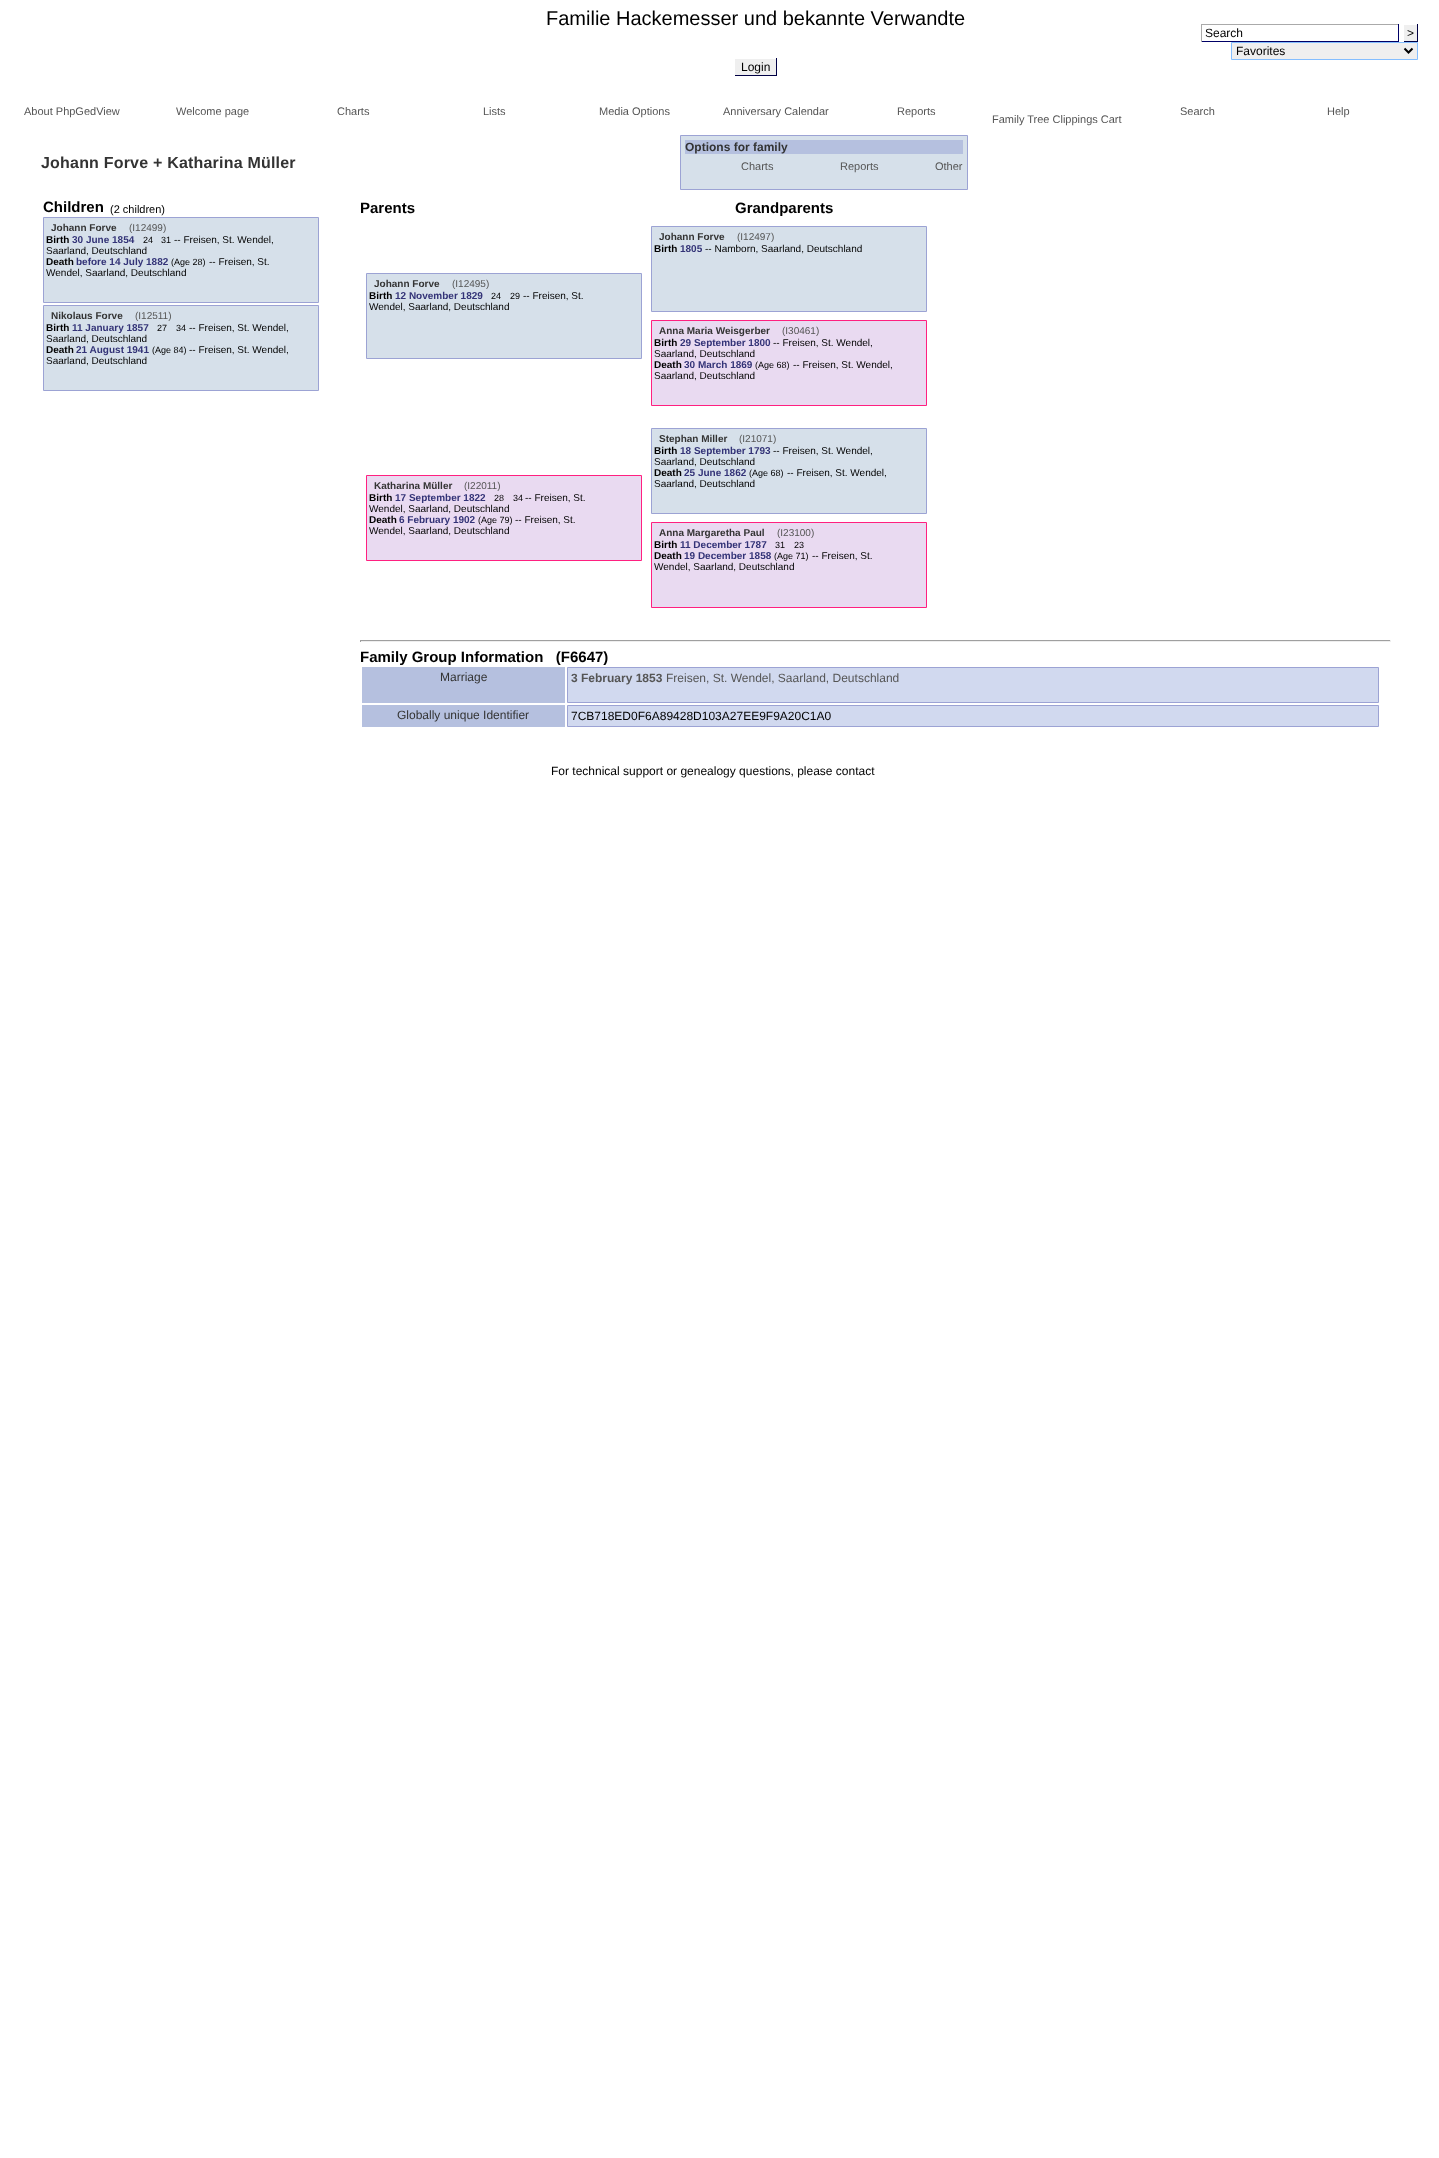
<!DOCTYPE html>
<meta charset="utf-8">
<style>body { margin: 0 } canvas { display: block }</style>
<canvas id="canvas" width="1439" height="2158"></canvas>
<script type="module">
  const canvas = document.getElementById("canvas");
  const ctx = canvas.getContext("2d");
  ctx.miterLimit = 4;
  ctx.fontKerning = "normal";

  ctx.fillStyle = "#ffffff";
  ctx.fillRect(0, 0, 1439, 2158);
  ctx.font = "20px Liberation Sans";
  ctx.fillStyle = "#000000";
  ctx.fillText("Familie Hackemesser und bekannte Verwandte", 546, 25);
  ctx.fillStyle = "#efefef";
  ctx.fillRect(735, 59, 41, 16);
  ctx.fillStyle = "#000044";
  ctx.fillRect(776, 58, 1, 18);
  ctx.fillRect(734, 75, 43, 1);
  ctx.fillStyle = "#ffffff";
  ctx.fillRect(734, 75, 1, 1);
  ctx.font = "12px Liberation Sans";
  ctx.fillStyle = "#000000";
  ctx.fillText("Login", 741, 71);
  ctx.fillStyle = "#aaaaaa";
  ctx.fillRect(1201, 24, 198, 1);
  ctx.fillStyle = "#000066";
  ctx.fillRect(1398, 24, 1, 18);
  ctx.fillRect(1201, 41, 198, 1);
  ctx.fillStyle = "#aaaaaa";
  ctx.fillRect(1201, 24, 1, 18);
  ctx.fillStyle = "#000000";
  ctx.fillText("Search", 1205, 37);
  ctx.fillStyle = "#efefef";
  ctx.fillRect(1404, 25, 13, 16);
  ctx.fillStyle = "#000044";
  ctx.fillRect(1417, 24, 1, 18);
  ctx.fillRect(1403, 41, 15, 1);
  ctx.fillStyle = "#ffffff";
  ctx.fillRect(1403, 41, 1, 1);
  ctx.fillStyle = "#000000";
  ctx.fillText(">", 1407, 37);
  ctx.fillStyle = "#efefef";
  ctx.beginPath();
  ctx.rect(1231.5, 42.5, 186, 17);
  ctx.fill();
  ctx.strokeStyle = "#84beff";
  ctx.stroke();
  ctx.beginPath();
  ctx.moveTo(1404.5, 48.5);
  ctx.lineTo(1408.5, 52.5);
  ctx.lineTo(1412.5, 48.5);
  ctx.strokeStyle = "#000000";
  ctx.lineWidth = 2;
  ctx.stroke();
  ctx.fillStyle = "#000000";
  ctx.fillText("Favorites", 1236, 55);
  ctx.font = "11px Liberation Sans";
  ctx.fillStyle = "#555555";
  ctx.fillText("About PhpGedView", 24, 115);
  ctx.fillText("Welcome page", 176, 115);
  ctx.fillText("Charts", 337, 115);
  ctx.fillText("Lists", 483, 115);
  ctx.fillText("Media Options", 599, 115);
  ctx.fillText("Anniversary Calendar", 723, 115);
  ctx.fillText("Reports", 897, 115);
  ctx.fillText("Search", 1180, 115);
  ctx.fillText("Help", 1327, 115);
  ctx.fillText("Family Tree Clippings Cart", 992, 123);
  ctx.letterSpacing = "0.2px";
  ctx.font = "bold 16px Liberation Sans";
  ctx.fillStyle = "#333333";
  ctx.fillText("Johann Forve + Katharina Müller", 41, 168);
  ctx.fillStyle = "#d6e0ea";
  ctx.beginPath();
  ctx.rect(680.5, 135.5, 287, 54);
  ctx.fill();
  ctx.strokeStyle = "#9ca3d4";
  ctx.lineWidth = 1;
  ctx.stroke();
  ctx.fillStyle = "#b5c0df";
  ctx.fillRect(685, 140, 278, 14);
  ctx.letterSpacing = "0px";
  ctx.font = "bold 12px Liberation Sans";
  ctx.fillStyle = "#333333";
  ctx.fillText("Options for family", 685, 151);
  ctx.font = "11px Liberation Sans";
  ctx.fillStyle = "#555555";
  ctx.fillText("Charts", 741, 170);
  ctx.fillText("Reports", 840, 170);
  ctx.fillText("Other", 935, 170);
  ctx.font = "bold 15px Liberation Sans";
  ctx.fillStyle = "#000000";
  ctx.fillText("Children", 43, 212);
  ctx.font = "11px Liberation Sans";
  ctx.fillText("(2 children)", 110, 213);
  ctx.fillStyle = "#d6e0ea";
  ctx.beginPath();
  ctx.rect(43.5, 217.5, 275, 85);
  ctx.fill();
  ctx.stroke();
  ctx.font = "bold 10px Liberation Sans";
  ctx.fillStyle = "#333333";
  ctx.fillText("Johann Forve", 51, 231);
  ctx.font = "10px Liberation Sans";
  ctx.fillStyle = "#555555";
  ctx.fillText("(I12499)", 129, 231);
  ctx.font = "bold 10px Liberation Sans";
  ctx.fillStyle = "#000000";
  ctx.fillText("Birth", 46, 243);
  ctx.fillStyle = "#333377";
  ctx.fillText("30 June 1854", 72, 243);
  ctx.font = "9px Liberation Sans";
  ctx.fillStyle = "#000000";
  ctx.fillText("24", 143, 243);
  ctx.fillText("31", 161, 243);
  ctx.font = "10px Liberation Sans";
  ctx.fillText("-- Freisen, St. Wendel,", 174, 243);
  ctx.fillText("Saarland, Deutschland", 46, 254);
  ctx.font = "bold 10px Liberation Sans";
  ctx.fillText("Death", 46, 265);
  ctx.fillStyle = "#333377";
  ctx.fillText("before 14 July 1882", 76, 265);
  ctx.font = "9px Liberation Sans";
  ctx.fillStyle = "#000000";
  ctx.fillText("(Age 28)", 171, 265);
  ctx.font = "10px Liberation Sans";
  ctx.fillText("-- Freisen, St.", 209, 265);
  ctx.fillText("Wendel, Saarland, Deutschland", 46, 276);
  ctx.fillStyle = "#d6e0ea";
  ctx.beginPath();
  ctx.rect(43.5, 305.5, 275, 85);
  ctx.fill();
  ctx.stroke();
  ctx.font = "bold 10px Liberation Sans";
  ctx.fillStyle = "#333333";
  ctx.fillText("Nikolaus Forve", 51, 319);
  ctx.font = "10px Liberation Sans";
  ctx.fillStyle = "#555555";
  ctx.fillText("(I12511)", 135, 319);
  ctx.font = "bold 10px Liberation Sans";
  ctx.fillStyle = "#000000";
  ctx.fillText("Birth", 46, 331);
  ctx.fillStyle = "#333377";
  ctx.fillText("11 January 1857", 72, 331);
  ctx.font = "9px Liberation Sans";
  ctx.fillStyle = "#000000";
  ctx.fillText("27", 157, 331);
  ctx.fillText("34", 176, 331);
  ctx.font = "10px Liberation Sans";
  ctx.fillText("-- Freisen, St. Wendel,", 189, 331);
  ctx.fillText("Saarland, Deutschland", 46, 342);
  ctx.font = "bold 10px Liberation Sans";
  ctx.fillText("Death", 46, 353);
  ctx.fillStyle = "#333377";
  ctx.fillText("21 August 1941", 76, 353);
  ctx.font = "9px Liberation Sans";
  ctx.fillStyle = "#000000";
  ctx.fillText("(Age 84)", 152, 353);
  ctx.font = "10px Liberation Sans";
  ctx.fillText("-- Freisen, St. Wendel,", 189, 353);
  ctx.fillText("Saarland, Deutschland", 46, 364);
  ctx.font = "bold 15px Liberation Sans";
  ctx.fillText("Parents", 360, 213);
  ctx.fillText("Grandparents", 735, 213);
  ctx.fillStyle = "#d6e0ea";
  ctx.beginPath();
  ctx.rect(651.5, 226.5, 275, 85);
  ctx.fill();
  ctx.stroke();
  ctx.font = "bold 10px Liberation Sans";
  ctx.fillStyle = "#333333";
  ctx.fillText("Johann Forve", 659, 240);
  ctx.font = "10px Liberation Sans";
  ctx.fillStyle = "#555555";
  ctx.fillText("(I12497)", 737, 240);
  ctx.font = "bold 10px Liberation Sans";
  ctx.fillStyle = "#000000";
  ctx.fillText("Birth", 654, 252);
  ctx.fillStyle = "#333377";
  ctx.fillText("1805", 680, 252);
  ctx.font = "10px Liberation Sans";
  ctx.fillStyle = "#000000";
  ctx.fillText("-- Namborn, Saarland, Deutschland", 705, 252);
  ctx.fillStyle = "#d6e0ea";
  ctx.beginPath();
  ctx.rect(366.5, 273.5, 275, 85);
  ctx.fill();
  ctx.stroke();
  ctx.font = "bold 10px Liberation Sans";
  ctx.fillStyle = "#333333";
  ctx.fillText("Johann Forve", 374, 287);
  ctx.font = "10px Liberation Sans";
  ctx.fillStyle = "#555555";
  ctx.fillText("(I12495)", 452, 287);
  ctx.font = "bold 10px Liberation Sans";
  ctx.fillStyle = "#000000";
  ctx.fillText("Birth", 369, 299);
  ctx.fillStyle = "#333377";
  ctx.fillText("12 November 1829", 395, 299);
  ctx.font = "9px Liberation Sans";
  ctx.fillStyle = "#000000";
  ctx.fillText("24", 491, 299);
  ctx.fillText("29", 510, 299);
  ctx.font = "10px Liberation Sans";
  ctx.fillText("-- Freisen, St.", 523, 299);
  ctx.fillText("Wendel, Saarland, Deutschland", 369, 310);
  ctx.fillStyle = "#e9daf1";
  ctx.beginPath();
  ctx.rect(651.5, 320.5, 275, 85);
  ctx.fill();
  ctx.strokeStyle = "#ff2080";
  ctx.stroke();
  ctx.font = "bold 10px Liberation Sans";
  ctx.fillStyle = "#333333";
  ctx.fillText("Anna Maria Weisgerber", 659, 334);
  ctx.font = "10px Liberation Sans";
  ctx.fillStyle = "#555555";
  ctx.fillText("(I30461)", 782, 334);
  ctx.font = "bold 10px Liberation Sans";
  ctx.fillStyle = "#000000";
  ctx.fillText("Birth", 654, 346);
  ctx.fillStyle = "#333377";
  ctx.fillText("29 September 1800", 680, 346);
  ctx.font = "10px Liberation Sans";
  ctx.fillStyle = "#000000";
  ctx.fillText("-- Freisen, St. Wendel,", 773, 346);
  ctx.fillText("Saarland, Deutschland", 654, 357);
  ctx.font = "bold 10px Liberation Sans";
  ctx.fillText("Death", 654, 368);
  ctx.fillStyle = "#333377";
  ctx.fillText("30 March 1869", 684, 368);
  ctx.font = "9px Liberation Sans";
  ctx.fillStyle = "#000000";
  ctx.fillText("(Age 68)", 755, 368);
  ctx.font = "10px Liberation Sans";
  ctx.fillText("-- Freisen, St. Wendel,", 793, 368);
  ctx.fillText("Saarland, Deutschland", 654, 379);
  ctx.fillStyle = "#d6e0ea";
  ctx.beginPath();
  ctx.rect(651.5, 428.5, 275, 85);
  ctx.fill();
  ctx.strokeStyle = "#9ca3d4";
  ctx.stroke();
  ctx.font = "bold 10px Liberation Sans";
  ctx.fillStyle = "#333333";
  ctx.fillText("Stephan Miller", 659, 442);
  ctx.font = "10px Liberation Sans";
  ctx.fillStyle = "#555555";
  ctx.fillText("(I21071)", 739, 442);
  ctx.font = "bold 10px Liberation Sans";
  ctx.fillStyle = "#000000";
  ctx.fillText("Birth", 654, 454);
  ctx.fillStyle = "#333377";
  ctx.fillText("18 September 1793", 680, 454);
  ctx.font = "10px Liberation Sans";
  ctx.fillStyle = "#000000";
  ctx.fillText("-- Freisen, St. Wendel,", 773, 454);
  ctx.fillText("Saarland, Deutschland", 654, 465);
  ctx.font = "bold 10px Liberation Sans";
  ctx.fillText("Death", 654, 476);
  ctx.fillStyle = "#333377";
  ctx.fillText("25 June 1862", 684, 476);
  ctx.font = "9px Liberation Sans";
  ctx.fillStyle = "#000000";
  ctx.fillText("(Age 68)", 749, 476);
  ctx.font = "10px Liberation Sans";
  ctx.fillText("-- Freisen, St. Wendel,", 787, 476);
  ctx.fillText("Saarland, Deutschland", 654, 487);
  ctx.fillStyle = "#e9daf1";
  ctx.beginPath();
  ctx.rect(366.5, 475.5, 275, 85);
  ctx.fill();
  ctx.strokeStyle = "#ff2080";
  ctx.stroke();
  ctx.font = "bold 10px Liberation Sans";
  ctx.fillStyle = "#333333";
  ctx.fillText("Katharina Müller", 374, 489);
  ctx.font = "10px Liberation Sans";
  ctx.fillStyle = "#555555";
  ctx.fillText("(I22011)", 464, 489);
  ctx.font = "bold 10px Liberation Sans";
  ctx.fillStyle = "#000000";
  ctx.fillText("Birth", 369, 501);
  ctx.fillStyle = "#333377";
  ctx.fillText("17 September 1822", 395, 501);
  ctx.font = "9px Liberation Sans";
  ctx.fillStyle = "#000000";
  ctx.fillText("28", 494, 501);
  ctx.fillText("34", 513, 501);
  ctx.font = "10px Liberation Sans";
  ctx.fillText("-- Freisen, St.", 525, 501);
  ctx.fillText("Wendel, Saarland, Deutschland", 369, 512);
  ctx.font = "bold 10px Liberation Sans";
  ctx.fillText("Death", 369, 523);
  ctx.fillStyle = "#333377";
  ctx.fillText("6 February 1902", 399, 523);
  ctx.font = "9px Liberation Sans";
  ctx.fillStyle = "#000000";
  ctx.fillText("(Age 79)", 478, 523);
  ctx.font = "10px Liberation Sans";
  ctx.fillText("-- Freisen, St.", 515, 523);
  ctx.fillText("Wendel, Saarland, Deutschland", 369, 534);
  ctx.fillStyle = "#e9daf1";
  ctx.beginPath();
  ctx.rect(651.5, 522.5, 275, 85);
  ctx.fill();
  ctx.stroke();
  ctx.font = "bold 10px Liberation Sans";
  ctx.fillStyle = "#333333";
  ctx.fillText("Anna Margaretha Paul", 659, 536);
  ctx.font = "10px Liberation Sans";
  ctx.fillStyle = "#555555";
  ctx.fillText("(I23100)", 777, 536);
  ctx.font = "bold 10px Liberation Sans";
  ctx.fillStyle = "#000000";
  ctx.fillText("Birth", 654, 548);
  ctx.fillStyle = "#333377";
  ctx.fillText("11 December 1787", 680, 548);
  ctx.font = "9px Liberation Sans";
  ctx.fillStyle = "#000000";
  ctx.fillText("31", 775, 548);
  ctx.fillText("23", 794, 548);
  ctx.font = "bold 10px Liberation Sans";
  ctx.fillText("Death", 654, 559);
  ctx.fillStyle = "#333377";
  ctx.fillText("19 December 1858", 684, 559);
  ctx.font = "9px Liberation Sans";
  ctx.fillStyle = "#000000";
  ctx.fillText("(Age 71)", 774, 559);
  ctx.font = "10px Liberation Sans";
  ctx.fillText("-- Freisen, St.", 812, 559);
  ctx.fillText("Wendel, Saarland, Deutschland", 654, 570);
  ctx.fillStyle = "#9f9f9f";
  ctx.fillRect(360, 640, 1031, 1);
  ctx.fillStyle = "#eeeeee";
  ctx.fillRect(1390, 640, 1, 2);
  ctx.fillRect(360, 641, 1031, 1);
  ctx.fillStyle = "#9f9f9f";
  ctx.fillRect(360, 640, 1, 2);
  ctx.font = "bold 15px Liberation Sans";
  ctx.fillStyle = "#000000";
  ctx.fillText("Family Group Information   (F6647)", 360, 662);
  ctx.fillStyle = "#b5c0df";
  ctx.fillRect(362, 667, 203, 36);
  ctx.font = "12px Liberation Sans";
  ctx.fillStyle = "#333333";
  ctx.fillText("Marriage", 440, 681);
  ctx.fillStyle = "#d1d9ef";
  ctx.beginPath();
  ctx.rect(567.5, 667.5, 811, 35);
  ctx.fill();
  ctx.strokeStyle = "#9ca3d4";
  ctx.stroke();
  ctx.font = "bold 12px Liberation Sans";
  ctx.fillStyle = "#555555";
  ctx.fillText("3 February 1853", 571, 682);
  ctx.font = "12px Liberation Sans";
  ctx.fillText("Freisen, St. Wendel, Saarland, Deutschland", 666, 682);
  ctx.fillStyle = "#b5c0df";
  ctx.fillRect(362, 705, 203, 22);
  ctx.fillStyle = "#333333";
  ctx.fillText("Globally unique Identifier", 397, 719);
  ctx.fillStyle = "#d1d9ef";
  ctx.beginPath();
  ctx.rect(567.5, 705.5, 811, 21);
  ctx.fill();
  ctx.stroke();
  ctx.fillStyle = "#000000";
  ctx.fillText("7CB718ED0F6A89428D103A27EE9F9A20C1A0", 571, 720);
  ctx.fillText("For technical support or genealogy questions, please contact", 551, 775);
</script>
